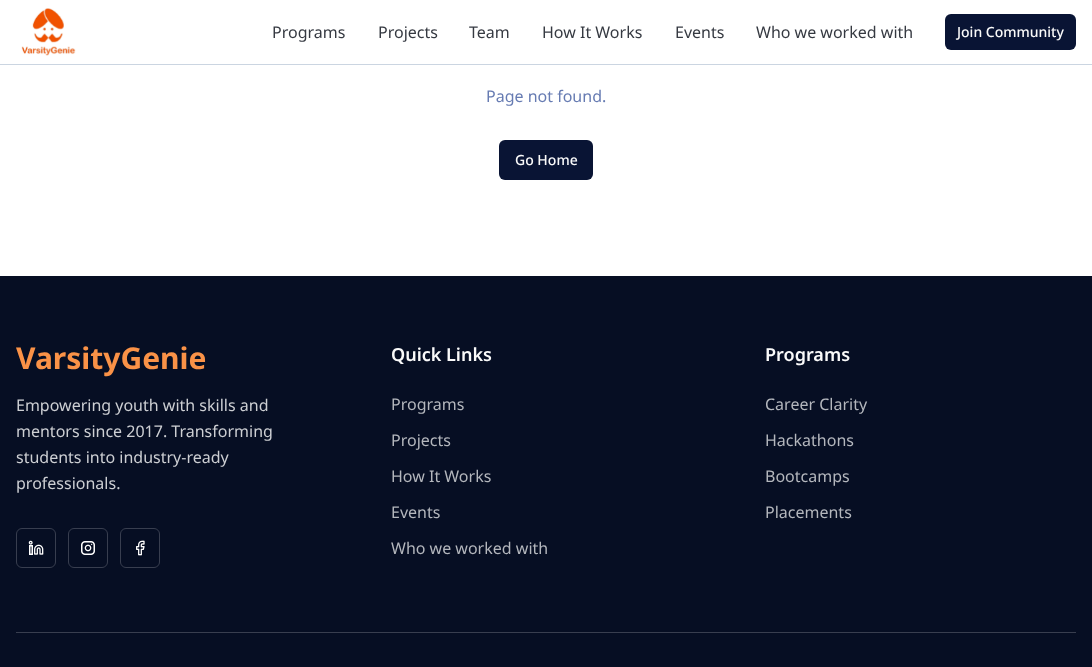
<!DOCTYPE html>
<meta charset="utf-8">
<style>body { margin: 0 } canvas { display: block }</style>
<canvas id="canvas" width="1092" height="667"></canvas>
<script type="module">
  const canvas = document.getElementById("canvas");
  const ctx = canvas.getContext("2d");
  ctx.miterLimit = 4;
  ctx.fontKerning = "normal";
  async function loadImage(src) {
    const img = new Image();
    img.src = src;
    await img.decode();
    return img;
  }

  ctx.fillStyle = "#ffffff";
  ctx.fillRect(0, 0, 1092, 667);
  ctx.fillStyle = "#cbd5e1";
  ctx.fillRect(0, 64, 1092, 1);
  ctx.drawImage(await loadImage("img1.png"), 21, 8, 55, 48);
  ctx.font = "16px Noto Sans";
  ctx.fillStyle = "#353941";
  ctx.fillText("Programs", 272, 38);
  ctx.fillText("Projects", 378, 38);
  ctx.fillText("Team", 469, 38);
  ctx.fillText("How It Works", 542, 38);
  ctx.fillText("Events", 675, 38);
  ctx.fillText("Who we worked with", 756, 38);
  ctx.fillStyle = "#091434";
  ctx.beginPath();
  ctx.roundRect(945, 14, 131, 36, 6);
  ctx.fill();
  ctx.font = "500 14px Noto Sans";
  ctx.fillStyle = "#fafafa";
  ctx.fillText("Join Community", 957, 37);
  ctx.font = "16px Noto Sans";
  ctx.fillStyle = "#667bb2";
  ctx.fillText("Page not found.", 486, 102);
  ctx.fillStyle = "#091434";
  ctx.beginPath();
  ctx.roundRect(499, 140, 94, 40, 6);
  ctx.fill();
  ctx.font = "500 14px Noto Sans";
  ctx.fillStyle = "#fafafa";
  ctx.fillText("Go Home", 515, 165);
  ctx.fillStyle = "#060e23";
  ctx.fillRect(0, 276, 1092, 391);
  ctx.font = "bold 30px Noto Sans";
  ctx.fillStyle = "#fa9247";
  ctx.fillText("VarsityGenie", 16, 369);
  ctx.font = "16px Noto Sans";
  ctx.fillStyle = "#cdcfd3";
  ctx.fillText("Empowering youth with skills and", 16, 411);
  ctx.fillText("mentors since 2017. Transforming", 16, 437);
  ctx.fillText("students into industry-ready", 16, 463);
  ctx.fillText("professionals.", 16, 489);
  ctx.beginPath();
  ctx.roundRect(16.5, 528.5, 39, 39, 5.5);
  ctx.strokeStyle = "#383e4f";
  ctx.stroke();
  ctx.drawImage(await loadImage("img2.png"), 28, 540, 16, 15);
  ctx.beginPath();
  ctx.roundRect(68.5, 528.5, 39, 39, 5.5);
  ctx.stroke();
  ctx.drawImage(await loadImage("img3.png"), 81, 541, 14, 14);
  ctx.beginPath();
  ctx.roundRect(120.5, 528.5, 39, 39, 5.5);
  ctx.stroke();
  ctx.drawImage(await loadImage("img4.png"), 136, 540, 9, 16);
  ctx.font = "600 18px Noto Sans";
  ctx.fillStyle = "#fafafa";
  ctx.fillText("Quick Links", 391, 361);
  ctx.font = "16px Noto Sans";
  ctx.fillStyle = "#b4b7bd";
  ctx.fillText("Programs", 391, 410);
  ctx.fillText("Projects", 391, 446);
  ctx.fillText("How It Works", 391, 482);
  ctx.fillText("Events", 391, 518);
  ctx.fillText("Who we worked with", 391, 554);
  ctx.font = "600 18px Noto Sans";
  ctx.fillStyle = "#fafafa";
  ctx.fillText("Programs", 765, 361);
  ctx.font = "16px Noto Sans";
  ctx.fillStyle = "#b4b7bd";
  ctx.fillText("Career Clarity", 765, 410);
  ctx.fillText("Hackathons", 765, 446);
  ctx.fillText("Bootcamps", 765, 482);
  ctx.fillText("Placements", 765, 518);
  ctx.fillStyle = "#383e4f";
  ctx.fillRect(16, 632, 1060, 1);
</script>
